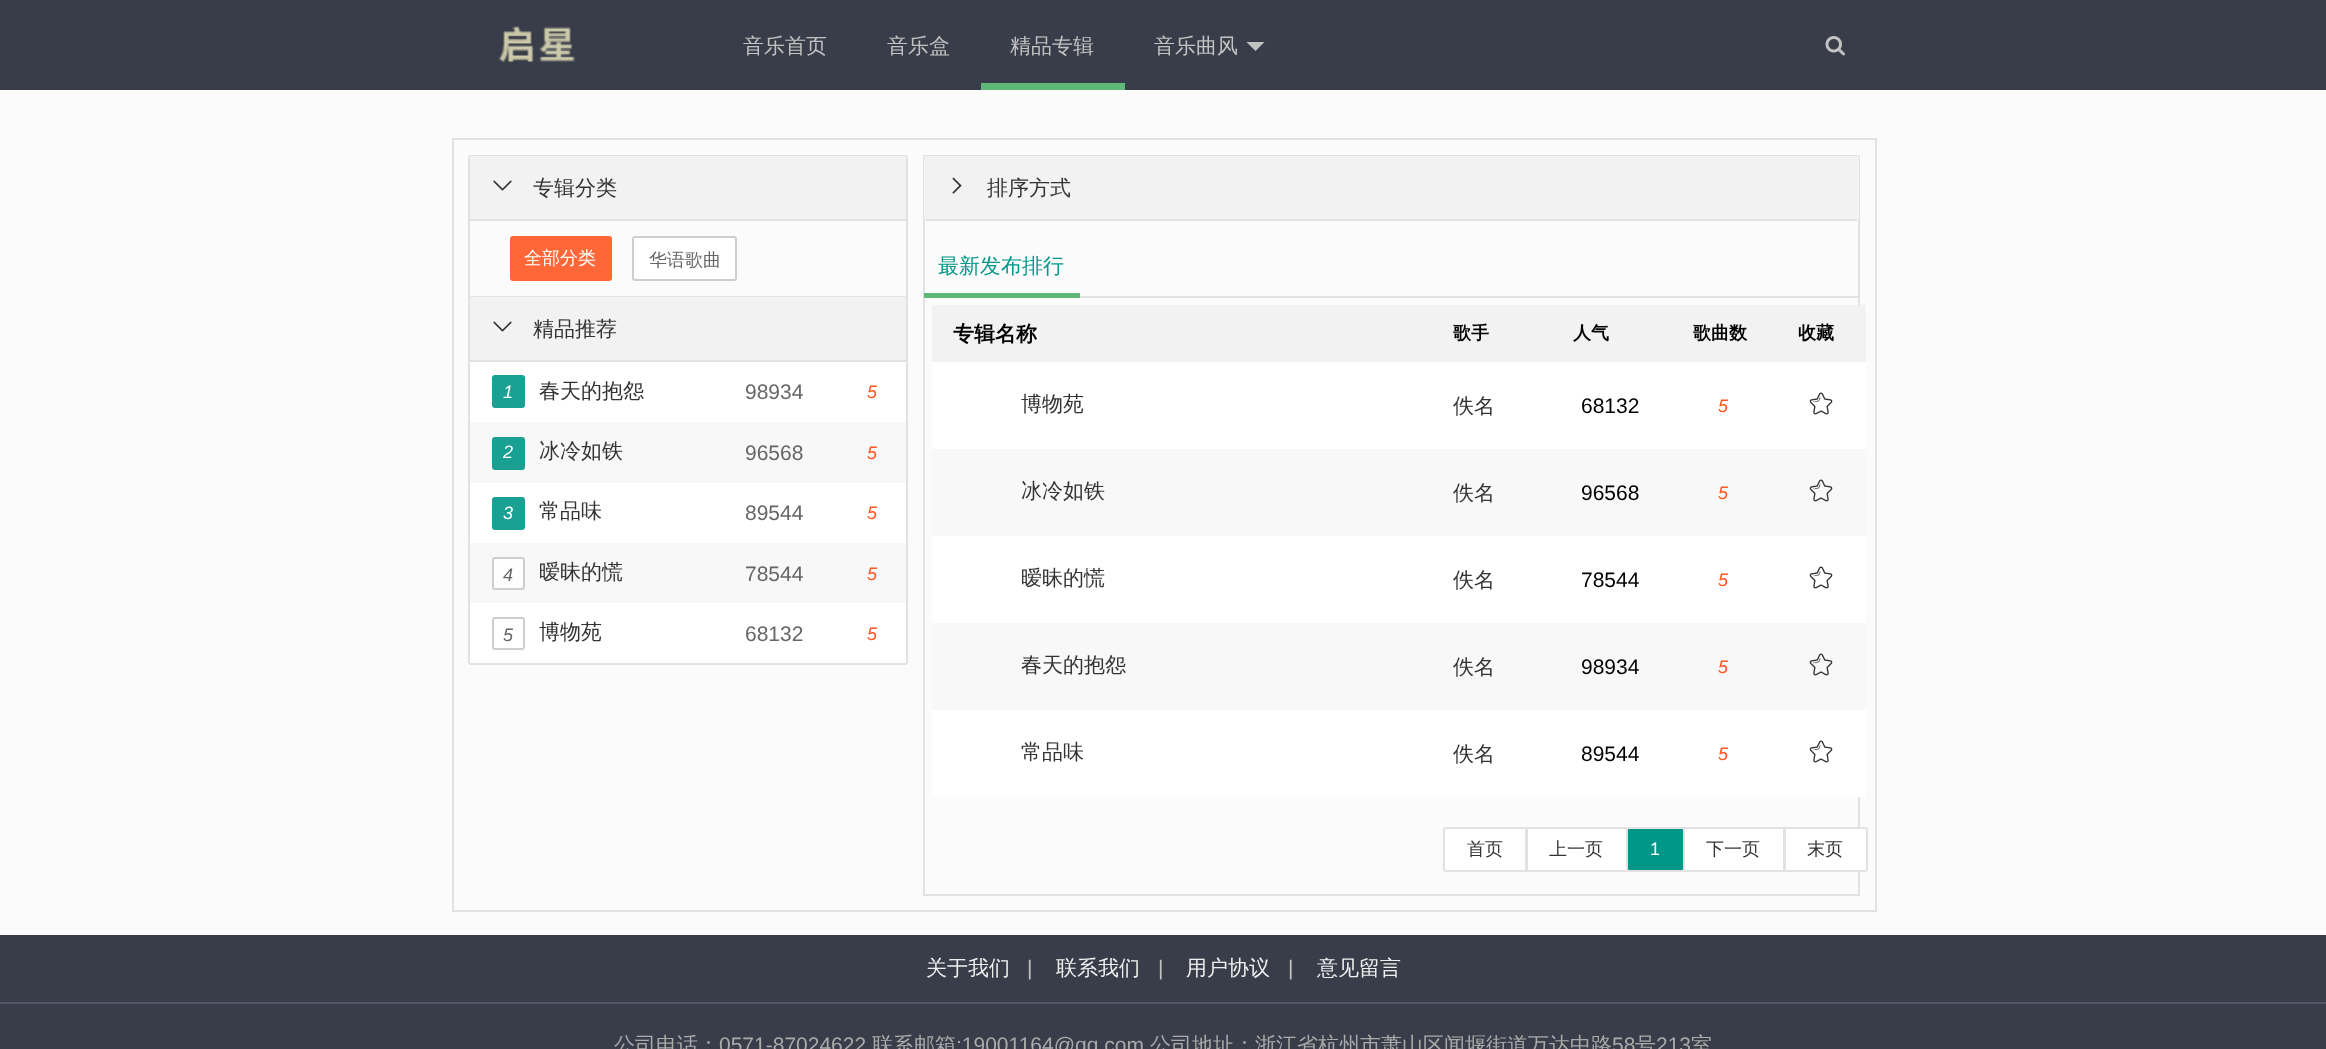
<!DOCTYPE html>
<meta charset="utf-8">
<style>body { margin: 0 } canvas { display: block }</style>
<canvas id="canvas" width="2326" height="1049"></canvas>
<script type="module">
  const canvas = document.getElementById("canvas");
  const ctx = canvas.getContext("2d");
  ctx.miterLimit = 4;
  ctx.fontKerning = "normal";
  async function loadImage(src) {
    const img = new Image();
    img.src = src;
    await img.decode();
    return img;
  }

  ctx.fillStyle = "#fbfbfb";
  ctx.fillRect(0, 0, 2326, 1049);
  ctx.fillStyle = "#393d49";
  ctx.fillRect(0, 0, 2326, 90);
  ctx.drawImage(await loadImage("img1.png"), 498, 26, 78, 37);
  ctx.font = "500 21px WenQuanYi Zen Hei";
  ctx.fillStyle = "#c2c2c2";
  ctx.fillText("音乐首页", 743, 53);
  ctx.fillText("音乐盒", 887, 53);
  ctx.fillText("精品专辑", 1010, 53);
  ctx.fillStyle = "#5fb878";
  ctx.fillRect(981, 83, 144, 7);
  ctx.fillStyle = "#c2c2c2";
  ctx.fillText("音乐曲风", 1154, 53);
  ctx.beginPath();
  ctx.moveTo(1246.5, 42);
  ctx.lineTo(1264.5, 42);
  ctx.lineTo(1255.5, 51);
  ctx.closePath();
  ctx.fill();
  ctx.drawImage(await loadImage("img2.png"), 1825, 36, 20, 20);
  ctx.strokeStyle = "#e2e2e2";
  ctx.lineWidth = 2;
  ctx.strokeRect(453, 139, 1423, 772);
  ctx.beginPath();
  ctx.roundRect(469, 156, 438, 508, 2);
  ctx.stroke();
  ctx.fillStyle = "#f2f2f2";
  ctx.fillRect(470, 156, 436, 63);
  ctx.drawImage(await loadImage("img3.png"), 493, 180, 19, 11);
  ctx.fillStyle = "#333333";
  ctx.fillText("专辑分类", 533, 195);
  ctx.fillStyle = "#e2e2e2";
  ctx.fillRect(470, 219, 436, 2);
  ctx.fillStyle = "#ff6738";
  ctx.beginPath();
  ctx.roundRect(510, 236, 102, 45, 3);
  ctx.fill();
  ctx.font = "500 18px WenQuanYi Zen Hei";
  ctx.fillStyle = "#ffffff";
  ctx.fillText("全部分类", 524, 264);
  ctx.beginPath();
  ctx.roundRect(633, 237, 103, 43, 2);
  ctx.fill();
  ctx.strokeStyle = "#cecece";
  ctx.stroke();
  ctx.fillStyle = "#666666";
  ctx.fillText("华语歌曲", 649, 266);
  ctx.fillStyle = "#e2e2e2";
  ctx.fillRect(470, 296, 436, 1);
  ctx.fillStyle = "#f2f2f2";
  ctx.fillRect(470, 297, 436, 63);
  ctx.drawImage(await loadImage("img3.png"), 493, 321, 19, 11);
  ctx.font = "500 21px WenQuanYi Zen Hei";
  ctx.fillStyle = "#333333";
  ctx.fillText("精品推荐", 533, 336);
  ctx.fillStyle = "#e2e2e2";
  ctx.fillRect(470, 360, 436, 2);
  ctx.fillStyle = "#ffffff";
  ctx.fillRect(470, 362, 436, 301);
  ctx.fillStyle = "#1aa194";
  ctx.beginPath();
  ctx.roundRect(492, 375, 33, 33, 3);
  ctx.fill();
  ctx.font = "italic 18px Liberation Sans";
  ctx.fillStyle = "#ffffff";
  ctx.fillText("1", 503, 398);
  ctx.font = "500 21px WenQuanYi Zen Hei";
  ctx.fillStyle = "#333333";
  ctx.fillText("春天的抱怨", 539, 398);
  ctx.font = "21px Liberation Sans";
  ctx.fillStyle = "#666666";
  ctx.fillText("98934", 745, 399);
  ctx.font = "italic 18px Liberation Sans";
  ctx.fillStyle = "#ff5722";
  ctx.fillText("5", 867, 398);
  ctx.fillStyle = "#f8f8f8";
  ctx.fillRect(470, 422, 436, 61);
  ctx.fillStyle = "#19a093";
  ctx.beginPath();
  ctx.roundRect(492, 437, 33, 33, 3);
  ctx.fill();
  ctx.fillStyle = "#ffffff";
  ctx.fillText("2", 503, 458);
  ctx.font = "500 21px WenQuanYi Zen Hei";
  ctx.fillStyle = "#333333";
  ctx.fillText("冰冷如铁", 539, 458);
  ctx.font = "21px Liberation Sans";
  ctx.fillStyle = "#666666";
  ctx.fillText("96568", 745, 460);
  ctx.font = "italic 18px Liberation Sans";
  ctx.fillStyle = "#ff5722";
  ctx.fillText("5", 867, 459);
  ctx.fillStyle = "#1aa194";
  ctx.beginPath();
  ctx.roundRect(492, 497, 33, 33, 3);
  ctx.fill();
  ctx.fillStyle = "#ffffff";
  ctx.fillText("3", 503, 519);
  ctx.font = "500 21px WenQuanYi Zen Hei";
  ctx.fillStyle = "#333333";
  ctx.fillText("常品味", 539, 518);
  ctx.font = "21px Liberation Sans";
  ctx.fillStyle = "#666666";
  ctx.fillText("89544", 745, 520);
  ctx.font = "italic 18px Liberation Sans";
  ctx.fillStyle = "#ff5722";
  ctx.fillText("5", 867, 519);
  ctx.fillStyle = "#f8f8f8";
  ctx.fillRect(470, 543, 436, 60);
  ctx.fillStyle = "#fefefe";
  ctx.beginPath();
  ctx.roundRect(493, 558, 31, 31, 2);
  ctx.fill();
  ctx.stroke();
  ctx.fillStyle = "#666666";
  ctx.fillText("4", 503, 581);
  ctx.font = "500 21px WenQuanYi Zen Hei";
  ctx.fillStyle = "#333333";
  ctx.fillText("暧昧的慌", 539, 579);
  ctx.font = "21px Liberation Sans";
  ctx.fillStyle = "#666666";
  ctx.fillText("78544", 745, 581);
  ctx.font = "italic 18px Liberation Sans";
  ctx.fillStyle = "#ff5722";
  ctx.fillText("5", 867, 580);
  ctx.beginPath();
  ctx.roundRect(493, 618, 31, 31, 2);
  ctx.stroke();
  ctx.fillStyle = "#666666";
  ctx.fillText("5", 503, 641);
  ctx.font = "500 21px WenQuanYi Zen Hei";
  ctx.fillStyle = "#333333";
  ctx.fillText("博物苑", 539, 639);
  ctx.font = "21px Liberation Sans";
  ctx.fillStyle = "#666666";
  ctx.fillText("68132", 745, 641);
  ctx.font = "italic 18px Liberation Sans";
  ctx.fillStyle = "#ff5722";
  ctx.fillText("5", 867, 640);
  ctx.strokeStyle = "#e2e2e2";
  ctx.strokeRect(924, 156, 935, 739);
  ctx.fillStyle = "#e2e2e2";
  ctx.fillRect(926, 219, 931, 2);
  ctx.fillStyle = "#f2f2f2";
  ctx.fillRect(924, 156, 935, 63);
  ctx.drawImage(await loadImage("img4.png"), 952, 177, 10, 17);
  ctx.font = "500 21px WenQuanYi Zen Hei";
  ctx.fillStyle = "#333333";
  ctx.fillText("排序方式", 987, 195);
  ctx.fillStyle = "#e2e2e2";
  ctx.fillRect(1080, 296, 779, 2);
  ctx.fillStyle = "#009688";
  ctx.fillText("最新发布排行", 938, 273);
  ctx.fillStyle = "#5fb878";
  ctx.fillRect(924, 293, 156, 5);
  ctx.fillStyle = "#ffffff";
  ctx.fillRect(932, 362, 934, 435);
  ctx.fillStyle = "#f2f2f2";
  ctx.fillRect(932, 305, 934, 57);
  ctx.font = "bold 21px WenQuanYi Zen Hei";
  ctx.fillStyle = "#000000";
  ctx.fillText("专辑名称", 953, 341);
  ctx.font = "bold 18px WenQuanYi Zen Hei";
  ctx.fillText("歌手", 1453, 339);
  ctx.fillText("人气", 1573, 339);
  ctx.fillText("歌曲数", 1693, 339);
  ctx.fillText("收藏", 1798, 339);
  ctx.font = "500 21px WenQuanYi Zen Hei";
  ctx.fillStyle = "#333333";
  ctx.fillText("博物苑", 1021, 411);
  ctx.fillText("佚名", 1453, 413);
  ctx.font = "21px Liberation Sans";
  ctx.fillStyle = "#000000";
  ctx.fillText("68132", 1581, 413);
  ctx.font = "italic 18px Liberation Sans";
  ctx.fillStyle = "#ff5722";
  ctx.fillText("5", 1718, 412);
  ctx.drawImage(await loadImage("img5.png"), 1809, 392, 24, 23);
  ctx.fillStyle = "#f8f8f8";
  ctx.fillRect(932, 449, 934, 87);
  ctx.font = "500 21px WenQuanYi Zen Hei";
  ctx.fillStyle = "#333333";
  ctx.fillText("冰冷如铁", 1021, 498);
  ctx.fillText("佚名", 1453, 500);
  ctx.font = "21px Liberation Sans";
  ctx.fillStyle = "#000000";
  ctx.fillText("96568", 1581, 500);
  ctx.font = "italic 18px Liberation Sans";
  ctx.fillStyle = "#ff5722";
  ctx.fillText("5", 1718, 499);
  ctx.drawImage(await loadImage("img6.png"), 1809, 479, 24, 23);
  ctx.font = "500 21px WenQuanYi Zen Hei";
  ctx.fillStyle = "#333333";
  ctx.fillText("暧昧的慌", 1021, 585);
  ctx.fillText("佚名", 1453, 587);
  ctx.font = "21px Liberation Sans";
  ctx.fillStyle = "#000000";
  ctx.fillText("78544", 1581, 587);
  ctx.font = "italic 18px Liberation Sans";
  ctx.fillStyle = "#ff5722";
  ctx.fillText("5", 1718, 586);
  ctx.drawImage(await loadImage("img5.png"), 1809, 566, 24, 23);
  ctx.fillStyle = "#f8f8f8";
  ctx.fillRect(932, 623, 934, 87);
  ctx.font = "500 21px WenQuanYi Zen Hei";
  ctx.fillStyle = "#333333";
  ctx.fillText("春天的抱怨", 1021, 672);
  ctx.fillText("佚名", 1453, 674);
  ctx.font = "21px Liberation Sans";
  ctx.fillStyle = "#000000";
  ctx.fillText("98934", 1581, 674);
  ctx.font = "italic 18px Liberation Sans";
  ctx.fillStyle = "#ff5722";
  ctx.fillText("5", 1718, 673);
  ctx.drawImage(await loadImage("img6.png"), 1809, 653, 24, 23);
  ctx.font = "500 21px WenQuanYi Zen Hei";
  ctx.fillStyle = "#333333";
  ctx.fillText("常品味", 1021, 759);
  ctx.fillText("佚名", 1453, 761);
  ctx.font = "21px Liberation Sans";
  ctx.fillStyle = "#000000";
  ctx.fillText("89544", 1581, 761);
  ctx.font = "italic 18px Liberation Sans";
  ctx.fillStyle = "#ff5722";
  ctx.fillText("5", 1718, 760);
  ctx.drawImage(await loadImage("img5.png"), 1809, 740, 24, 23);
  ctx.fillStyle = "#ffffff";
  ctx.beginPath();
  ctx.roundRect(1444, 828, 82, 43, [2, 0, 0, 2]);
  ctx.fill();
  ctx.stroke();
  ctx.font = "500 18px WenQuanYi Zen Hei";
  ctx.fillStyle = "#333333";
  ctx.fillText("首页", 1467, 855);
  ctx.fillStyle = "#ffffff";
  ctx.beginPath();
  ctx.rect(1527, 828, 100, 43);
  ctx.fill();
  ctx.stroke();
  ctx.fillStyle = "#333333";
  ctx.fillText("上一页", 1549, 855);
  ctx.fillStyle = "#009688";
  ctx.beginPath();
  ctx.roundRect(1627, 828, 57, 43, 2);
  ctx.fill();
  ctx.stroke();
  ctx.font = "18px Liberation Sans";
  ctx.fillStyle = "#ffffff";
  ctx.fillText("1", 1650, 855);
  ctx.beginPath();
  ctx.rect(1684, 828, 100, 43);
  ctx.fill();
  ctx.stroke();
  ctx.font = "500 18px WenQuanYi Zen Hei";
  ctx.fillStyle = "#333333";
  ctx.fillText("下一页", 1706, 855);
  ctx.fillStyle = "#ffffff";
  ctx.beginPath();
  ctx.roundRect(1785, 828, 82, 43, [0, 2, 2, 0]);
  ctx.fill();
  ctx.stroke();
  ctx.fillStyle = "#333333";
  ctx.fillText("末页", 1807, 855);
  ctx.fillStyle = "#393d49";
  ctx.fillRect(0, 935, 2326, 114);
  ctx.fillStyle = "#51576b";
  ctx.fillRect(0, 1002, 2326, 2);
  ctx.font = "500 21px WenQuanYi Zen Hei";
  ctx.fillStyle = "#eeeeee";
  ctx.fillText("关于我们", 926, 975);
  ctx.font = "21px Liberation Sans";
  ctx.fillStyle = "#c2c2c2";
  ctx.fillText("|", 1027, 975);
  ctx.font = "500 21px WenQuanYi Zen Hei";
  ctx.fillStyle = "#eeeeee";
  ctx.fillText("联系我们", 1056, 975);
  ctx.font = "21px Liberation Sans";
  ctx.fillStyle = "#c2c2c2";
  ctx.fillText("|", 1158, 975);
  ctx.font = "500 21px WenQuanYi Zen Hei";
  ctx.fillStyle = "#eeeeee";
  ctx.fillText("用户协议", 1186, 975);
  ctx.font = "21px Liberation Sans";
  ctx.fillStyle = "#c2c2c2";
  ctx.fillText("|", 1288, 975);
  ctx.font = "500 21px WenQuanYi Zen Hei";
  ctx.fillStyle = "#eeeeee";
  ctx.fillText("意见留言", 1317, 975);
  ctx.fillStyle = "#aaaaaa";
  ctx.fillText("公司电话：", 614, 1052);
  ctx.font = "21px Liberation Sans";
  ctx.fillText("0571-87024622", 719, 1052);
  ctx.font = "500 21px WenQuanYi Zen Hei";
  ctx.fillText("联系邮箱", 872, 1052);
  ctx.font = "21px Liberation Sans";
  ctx.fillText(":19001164@qq.com", 956, 1052);
  ctx.font = "500 21px WenQuanYi Zen Hei";
  ctx.fillText("公司地址：浙江省杭州市萧山区闻堰街道万达中路", 1150, 1052);
  ctx.font = "21px Liberation Sans";
  ctx.fillText("58", 1612, 1052);
  ctx.font = "500 21px WenQuanYi Zen Hei";
  ctx.fillText("号", 1635, 1052);
  ctx.font = "21px Liberation Sans";
  ctx.fillText("213", 1656, 1052);
  ctx.font = "500 21px WenQuanYi Zen Hei";
  ctx.fillText("室", 1691, 1052);
</script>
